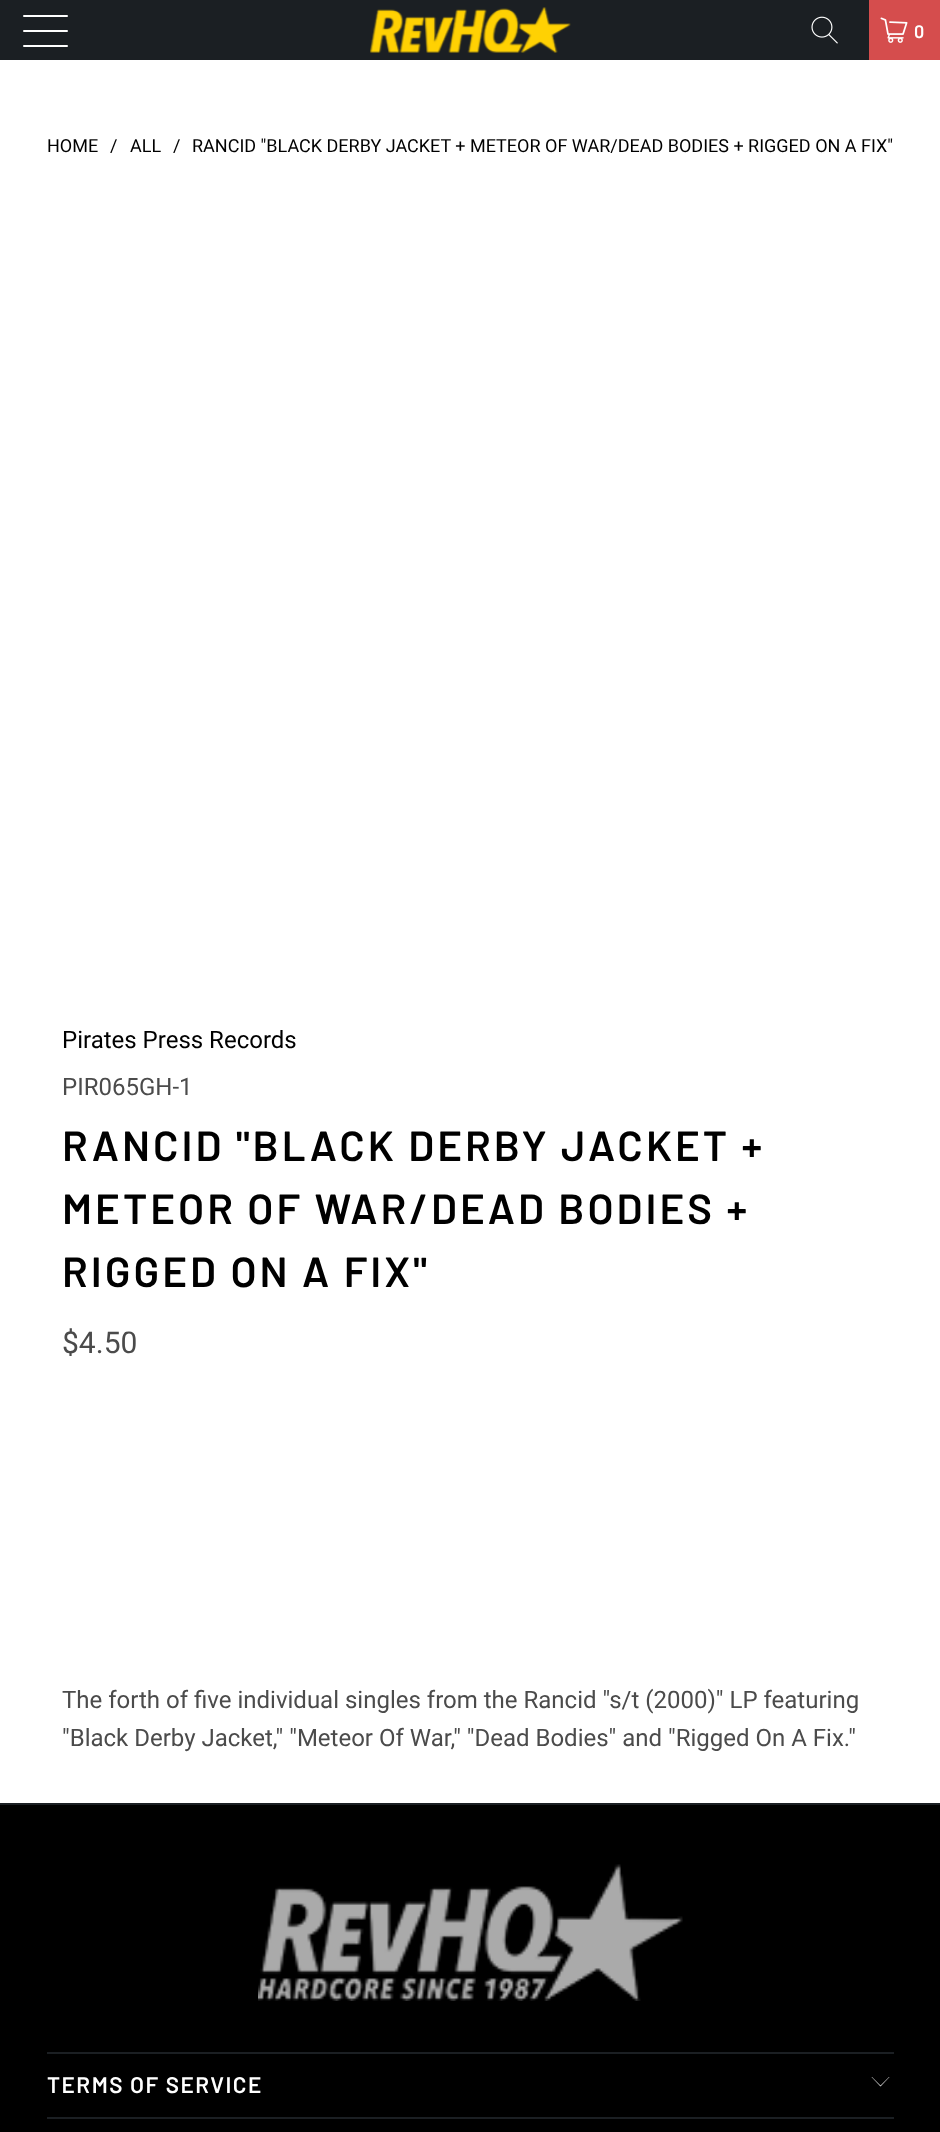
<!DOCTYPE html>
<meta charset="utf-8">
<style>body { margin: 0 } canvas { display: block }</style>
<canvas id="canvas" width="940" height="2132"></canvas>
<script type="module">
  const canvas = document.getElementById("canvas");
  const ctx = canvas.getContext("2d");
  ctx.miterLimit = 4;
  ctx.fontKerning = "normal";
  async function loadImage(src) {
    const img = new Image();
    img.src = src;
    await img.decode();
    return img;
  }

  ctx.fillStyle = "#ffffff";
  ctx.fillRect(0, 0, 940, 2132);
  ctx.fillStyle = "#1b1f23";
  ctx.fillRect(0, 0, 869, 60);
  ctx.fillStyle = "#ffffff";
  ctx.beginPath();
  ctx.roundRect(23, 15, 45, 2, 1);
  ctx.fill();
  ctx.beginPath();
  ctx.roundRect(23, 30, 45, 2, 1);
  ctx.fill();
  ctx.beginPath();
  ctx.roundRect(23, 45, 45, 2, 1);
  ctx.fill();
  ctx.drawImage(await loadImage("img1.png"), 370, 7, 201, 46);
  ctx.drawImage(await loadImage("img2.png"), 811, 16, 27, 28);
  ctx.fillStyle = "#d54d4d";
  ctx.fillRect(869, 0, 71, 60);
  ctx.drawImage(await loadImage("img3.png"), 880, 17, 28, 26);
  ctx.letterSpacing = "1.5px";
  ctx.font = "600 18px Barlow";
  ctx.fillStyle = "#ffffff";
  ctx.fillText("0", 914, 38);
  ctx.letterSpacing = "0px";
  ctx.font = "18px Roboto";
  ctx.fillStyle = "#000000";
  ctx.fillText("HOME", 47, 152);
  ctx.fillText("/", 110, 152);
  ctx.fillText("ALL", 130, 152);
  ctx.fillText("/", 173, 152);
  ctx.fillText("RANCID \"BLACK DERBY JACKET + METEOR OF WAR/DEAD BODIES + RIGGED ON A FIX\"", 192, 152);
  ctx.font = "24px Roboto";
  ctx.fillText("Pirates Press Records", 62, 1048);
  ctx.fillStyle = "#4b4b4b";
  ctx.fillText("PIR065GH-1", 62, 1095);
  ctx.letterSpacing = "3px";
  ctx.font = "600 42px Barlow";
  ctx.fillStyle = "#000000";
  ctx.fillText("RANCID \"BLACK DERBY JACKET +", 62, 1161);
  ctx.fillText("METEOR OF WAR/DEAD BODIES +", 62, 1224);
  ctx.fillText("RIGGED ON A FIX\"", 62, 1287);
  ctx.letterSpacing = "0px";
  ctx.font = "30px Roboto";
  ctx.fillStyle = "#4b4b4b";
  ctx.fillText("$4.50", 62, 1353);
  ctx.font = "24px Roboto";
  ctx.fillText("The forth of five individual singles from the Rancid \"s/t (2000)\" LP featuring", 62, 1708);
  ctx.fillText("\"Black Derby Jacket,\" \"Meteor Of War,\" \"Dead Bodies\" and \"Rigged On A Fix.\"", 62, 1746);
  ctx.fillStyle = "#000000";
  ctx.fillRect(0, 1805, 940, 327);
  ctx.fillStyle = "#1b1f23";
  ctx.fillRect(0, 1803, 940, 2);
  ctx.drawImage(await loadImage("img4.png"), 258, 1864, 425, 137);
  ctx.fillRect(47, 2052, 847, 2);
  ctx.letterSpacing = "1.5px";
  ctx.font = "600 22.5px Barlow";
  ctx.fillStyle = "#ffffff";
  ctx.fillText("TERMS OF SERVICE", 47, 2093);
  ctx.beginPath();
  ctx.moveTo(880.5, 2086.5);
  ctx.lineTo(871.5, 2077);
  ctx.lineTo(872, 2077);
  ctx.lineTo(880.5, 2085.5);
  ctx.lineTo(889, 2077);
  ctx.lineTo(889.5, 2077);
  ctx.closePath();
  ctx.fill();
  ctx.fillStyle = "#1b1f23";
  ctx.fillRect(47, 2117, 847, 2);
</script>
